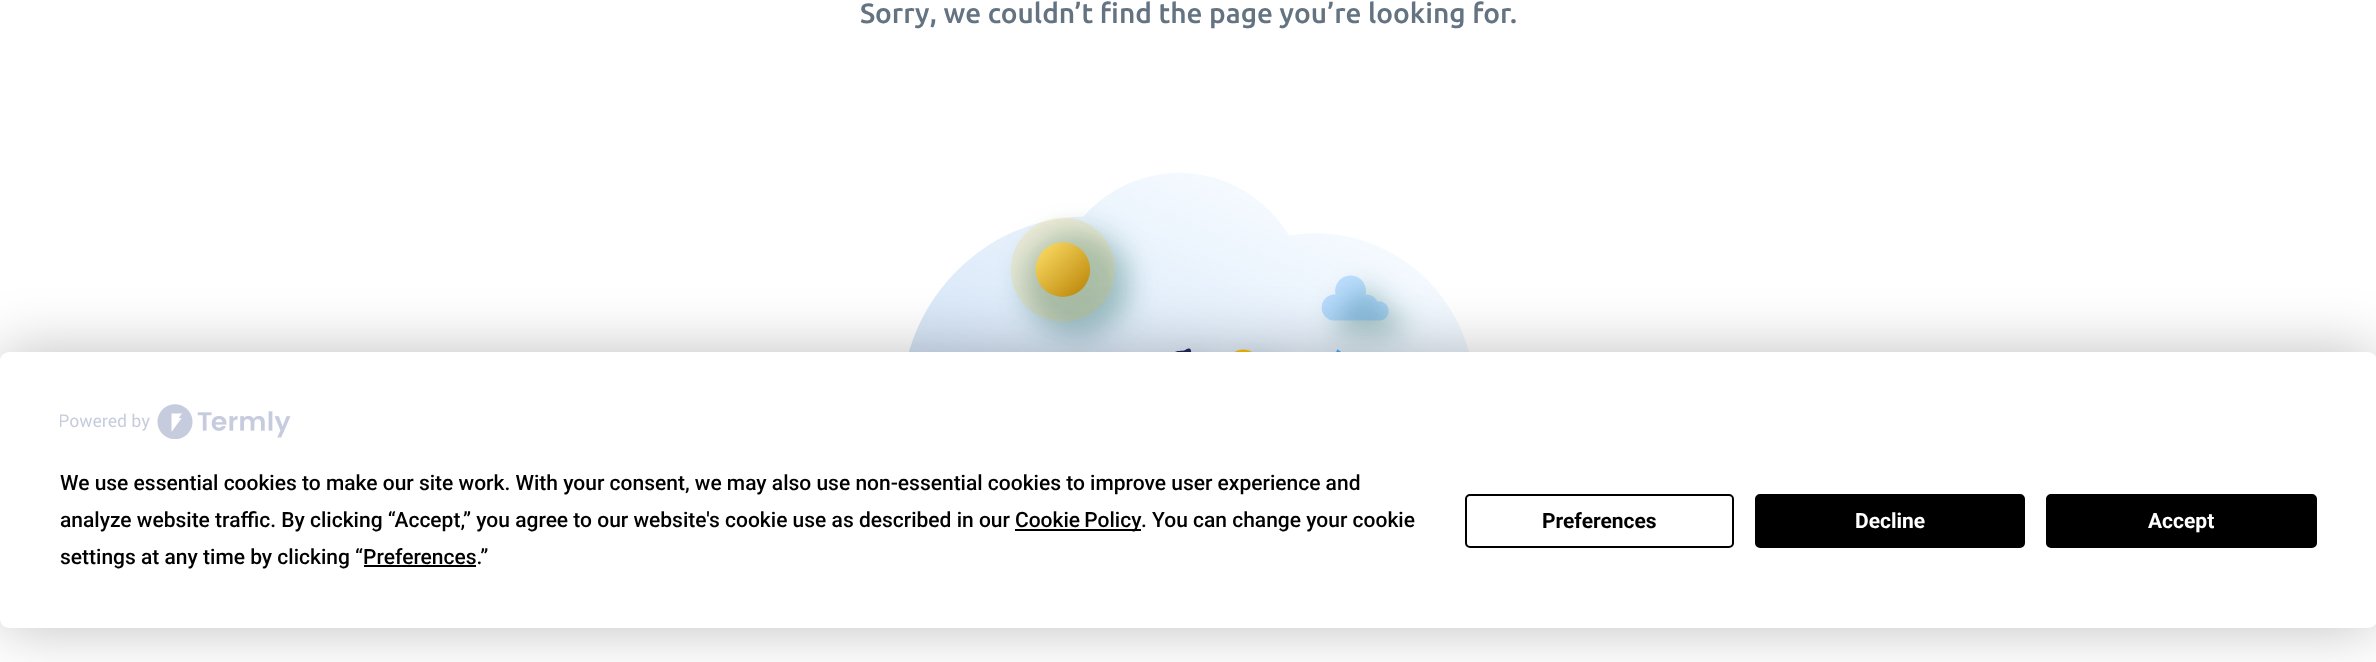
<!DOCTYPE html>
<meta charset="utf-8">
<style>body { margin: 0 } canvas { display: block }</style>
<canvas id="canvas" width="2376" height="662"></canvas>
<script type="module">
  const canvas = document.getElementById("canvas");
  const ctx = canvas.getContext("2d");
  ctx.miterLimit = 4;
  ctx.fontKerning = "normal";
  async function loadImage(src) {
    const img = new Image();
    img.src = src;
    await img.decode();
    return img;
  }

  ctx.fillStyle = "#ffffff";
  ctx.fillRect(0, 0, 2376, 662);
  ctx.font = "500 28px Ubuntu";
  ctx.fillStyle = "#637381";
  ctx.fillText("Sorry, we couldn’t find the page you’re looking for.", 860, 23);
  ctx.drawImage(await loadImage("img1.png"), 909, 173, 560, 179);
  ctx.fillStyle = "rgba(0, 0, 0, 0.25)";
  ctx.filter = "blur(30.5px)";
  ctx.beginPath();
  ctx.roundRect(0, 352, 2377, 276, 9);
  ctx.fill();
  ctx.filter = "none";
  ctx.fillStyle = "#ffffff";
  ctx.beginPath();
  ctx.roundRect(0, 352, 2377, 276, 9);
  ctx.fill();
  ctx.drawImage(await loadImage("img2.png"), 60, 404, 231, 35);
  ctx.font = "500 21px Roboto";
  ctx.fillStyle = "#000000";
  ctx.fillText("We use essential cookies to make our site work. With your consent, we may also use non-essential cookies to improve user experience and", 60, 490);
  ctx.fillText("analyze website traffic. By clicking “Accept,” you agree to our website's cookie use as described in our", 60, 527);
  ctx.fillRect(1015, 529, 126, 2);
  ctx.wordSpacing = "-1px";
  ctx.fillText("Cookie Policy", 1015, 527);
  ctx.wordSpacing = "0px";
  ctx.fillText(". You can change your cookie", 1141, 527);
  ctx.fillText("settings at any time by clicking “Preferences.”", 60, 564);
  ctx.fillRect(364, 565, 112, 2);
  ctx.beginPath();
  ctx.roundRect(1466, 495, 267, 52, 4);
  ctx.strokeStyle = "#000000";
  ctx.lineWidth = 2;
  ctx.stroke();
  ctx.font = "bold 21px Roboto";
  ctx.fillText("Preferences", 1542, 528);
  ctx.beginPath();
  ctx.roundRect(1756, 495, 268, 52, 4);
  ctx.fill();
  ctx.stroke();
  ctx.fillStyle = "#ffffff";
  ctx.fillText("Decline", 1855, 528);
  ctx.fillStyle = "#000000";
  ctx.beginPath();
  ctx.roundRect(2047, 495, 269, 52, 4);
  ctx.fill();
  ctx.stroke();
  ctx.fillStyle = "#ffffff";
  ctx.fillText("Accept", 2148, 528);
</script>
